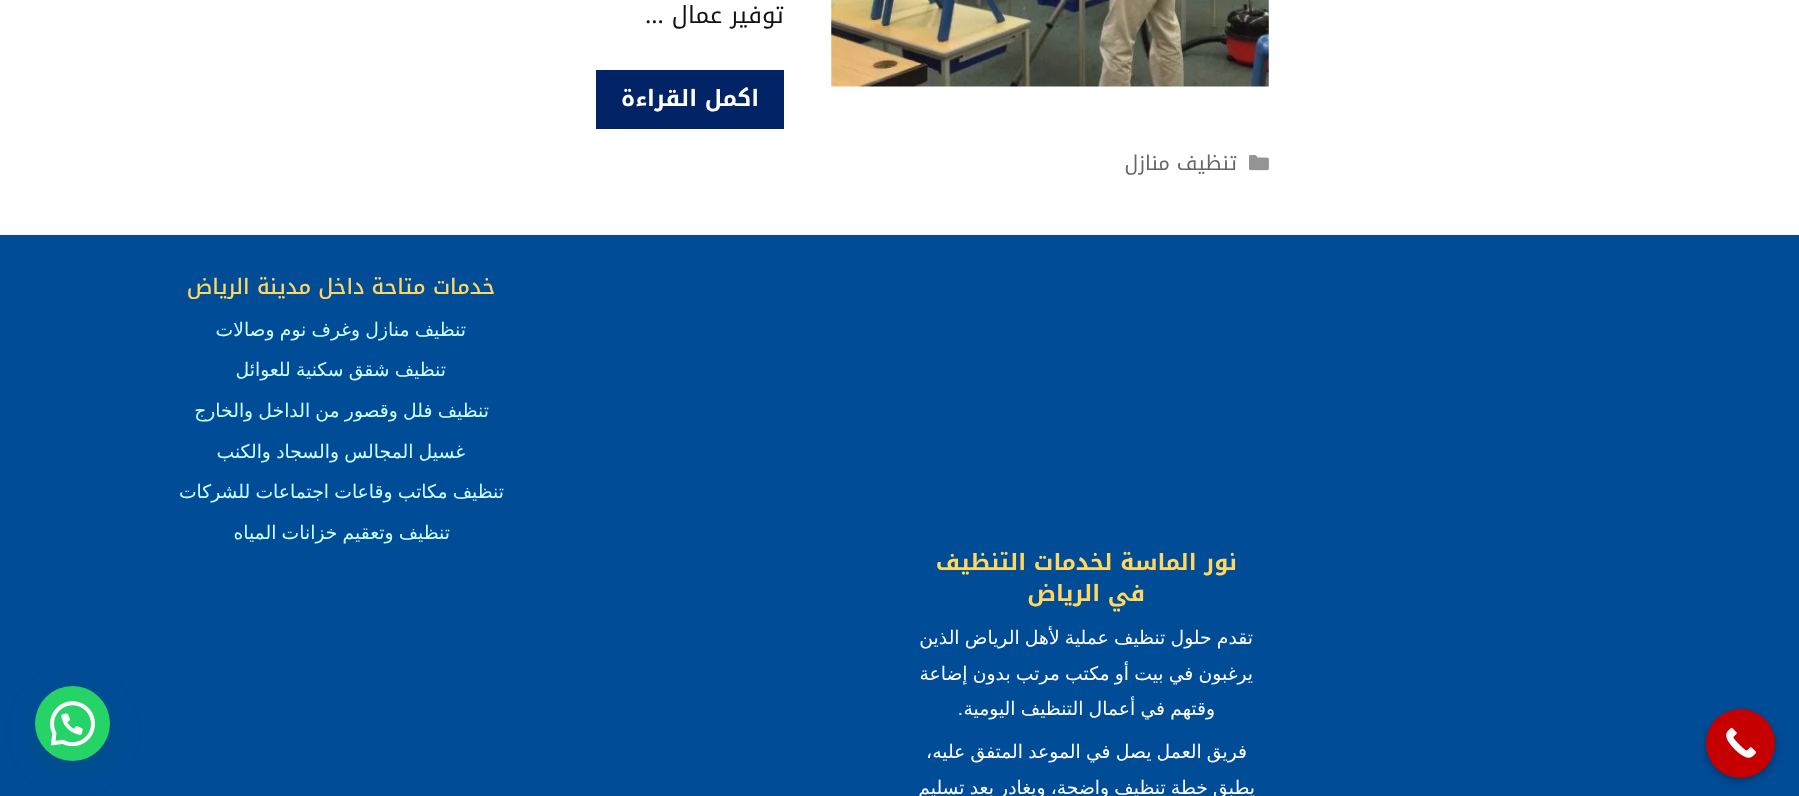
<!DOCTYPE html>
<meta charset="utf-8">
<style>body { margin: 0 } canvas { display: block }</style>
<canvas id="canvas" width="1799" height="796"></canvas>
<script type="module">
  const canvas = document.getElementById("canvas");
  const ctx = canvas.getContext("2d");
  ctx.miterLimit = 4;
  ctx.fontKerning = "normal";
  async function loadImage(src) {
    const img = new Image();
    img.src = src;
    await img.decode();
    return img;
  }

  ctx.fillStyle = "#ffffff";
  ctx.fillRect(0, 0, 1799, 796);
  ctx.drawImage(await loadImage("img1.png"), 831, 0, 438, 87);
  ctx.direction = "rtl";
  ctx.font = "23.75px Noto Kufi Arabic";
  ctx.fillStyle = "#121212";
  ctx.fillText("توفير عمال …", 784, 23);
  ctx.fillStyle = "#022366";
  ctx.fillRect(596, 70, 188, 59);
  ctx.font = "bold 22.5px Noto Kufi Arabic";
  ctx.fillStyle = "#ffffff";
  ctx.fillText("اكمل القراءة", 759, 106);
  ctx.drawImage(await loadImage("img2.png"), 1249, 155, 20, 16);
  ctx.font = "20.25px Noto Kufi Arabic";
  ctx.fillStyle = "#666666";
  ctx.fillText("تنظيف منازل", 1237, 170);
  ctx.fillStyle = "#004c97";
  ctx.fillRect(0, 235, 1799, 561);
  ctx.fillStyle = "rgba(0, 0, 0, 0.3)";
  ctx.filter = "blur(4px)";
  ctx.beginPath();
  ctx.roundRect(1706, 713, 69, 68, 34);
  ctx.fill();
  ctx.filter = "none";
  ctx.fillStyle = "#c60000";
  ctx.beginPath();
  ctx.arc(1740.5, 743.5, 34.5, 0, Math.PI * 2);
  ctx.fill();
  ctx.drawImage(await loadImage("img3.png"), 1726, 727, 31, 31);
  ctx.font = "500 21.25px Noto Kufi Arabic";
  ctx.fillStyle = "#ffd861";
  ctx.fillText("خدمات متاحة داخل مدينة الرياض", 495, 294);
  ctx.wordSpacing = "-0.75px";
  ctx.font = "18.75px DejaVu Sans";
  ctx.fillStyle = "#ccffff";
  ctx.fillText("تنظيف منازل وغرف نوم وصالات", 466, 336);
  ctx.fillText("تنظيف شقق سكنية للعوائل", 446, 376);
  ctx.fillText("تنظيف فلل وقصور من الداخل والخارج", 489, 417);
  ctx.fillText("غسيل المجالس والسجاد والكنب", 465, 458);
  ctx.fillText("تنظيف مكاتب وقاعات اجتماعات للشركات", 504, 498);
  ctx.fillText("تنظيف وتعقيم خزانات المياه", 450, 539);
  ctx.wordSpacing = "0px";
  ctx.font = "bold 22.5px Noto Kufi Arabic";
  ctx.fillStyle = "#ffd861";
  ctx.fillText("نور الماسة لخدمات التنظيف", 1237, 570);
  ctx.fillText("في الرياض", 1145, 601);
  ctx.wordSpacing = "-0.75px";
  ctx.font = "18.75px DejaVu Sans";
  ctx.fillStyle = "#ffffff";
  ctx.fillText("تقدم حلول تنظيف عملية لأهل الرياض الذين", 1253, 644);
  ctx.fillText("يرغبون في بيت أو مكتب مرتب بدون إضاعة", 1253, 680);
  ctx.fillText("وقتهم في أعمال التنظيف اليومية", 1215, 715);
  ctx.wordSpacing = "0px";
  ctx.font = "18.75px Liberation Sans";
  ctx.fillText(".", 963, 715);
  ctx.wordSpacing = "-0.75px";
  ctx.font = "18.75px DejaVu Sans";
  ctx.fillText("فريق العمل يصل في الموعد المتفق عليه،", 1247, 758);
  ctx.fillText("يطبق خطة تنظيف واضحة، ويغادر بعد تسليم", 1255, 794);
  ctx.fillStyle = "rgba(7, 94, 84, 0.24)";
  ctx.filter = "blur(15px)";
  ctx.beginPath();
  ctx.roundRect(36, 694, 75, 75, 37.5);
  ctx.fill();
  ctx.filter = "none";
  ctx.fillStyle = "#25d366";
  ctx.beginPath();
  ctx.arc(72.5, 723.5, 37.5, 0, Math.PI * 2);
  ctx.fill();
  ctx.drawImage(await loadImage("img4.png"), 50, 701, 45, 45);
</script>
